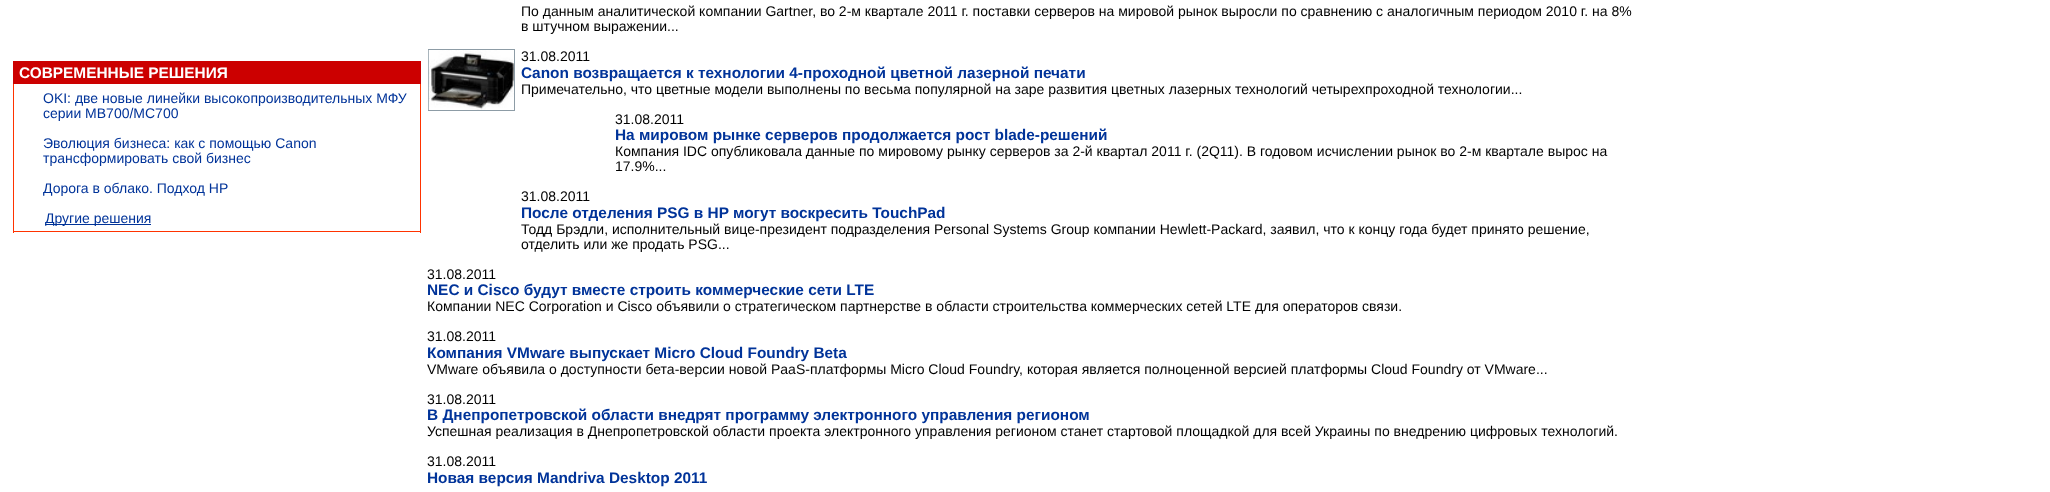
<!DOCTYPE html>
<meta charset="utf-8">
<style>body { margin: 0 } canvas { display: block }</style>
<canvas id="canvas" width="2050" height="492"></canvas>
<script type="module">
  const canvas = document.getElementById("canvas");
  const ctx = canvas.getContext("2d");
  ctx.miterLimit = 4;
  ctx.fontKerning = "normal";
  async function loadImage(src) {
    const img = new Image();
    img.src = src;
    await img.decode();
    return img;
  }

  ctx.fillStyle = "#ffffff";
  ctx.fillRect(0, 0, 2050, 492);
  ctx.fillStyle = "#cc0000";
  ctx.fillRect(13, 61, 408, 23);
  ctx.font = "bold 15.4px Liberation Sans";
  ctx.fillStyle = "#ffffff";
  ctx.fillText("СОВРЕМЕННЫЕ РЕШЕНИЯ", 19, 78);
  ctx.fillStyle = "#ff3300";
  ctx.fillRect(420, 84, 1, 149);
  ctx.fillRect(13, 231, 408, 1);
  ctx.fillRect(13, 84, 1, 149);
  ctx.font = "14px Liberation Sans";
  ctx.fillStyle = "#003399";
  ctx.fillText("OKI: две новые линейки высокопроизводительных МФУ", 43, 103);
  ctx.fillText("серии МВ700/MC700", 43, 118);
  ctx.fillText("Эволюция бизнеса: как с помощью Canon", 43, 148);
  ctx.fillText("трансформировать свой бизнес", 43, 163);
  ctx.fillText("Дорога в облако. Подход HP", 43, 193);
  ctx.fillRect(45, 224, 106, 1);
  ctx.fillText("Другие решения", 45, 223);
  ctx.fillStyle = "#000000";
  ctx.fillText("По данным аналитической компании Gartner, во 2-м квартале 2011 г. поставки серверов на мировой рынок выросли по сравнению с аналогичным периодом 2010 г. на 8%", 521, 16);
  ctx.fillText("в штучном выражении...", 521, 31);
  ctx.strokeStyle = "#8d9ca6";
  ctx.strokeRect(428.5, 49.5, 86, 61);
  ctx.drawImage(await loadImage("img1.png"), 428, 50, 86, 60);
  ctx.fillText("31.08.2011", 521, 61);
  ctx.font = "bold 15.4px Liberation Sans";
  ctx.fillStyle = "#003399";
  ctx.fillText("Canon возвращается к технологии 4-проходной цветной лазерной печати", 521, 78);
  ctx.font = "14px Liberation Sans";
  ctx.fillStyle = "#000000";
  ctx.fillText("Примечательно, что цветные модели выполнены по весьма популярной на заре развития цветных лазерных технологий четырехпроходной технологии...", 521, 94);
  ctx.fillText("31.08.2011", 615, 124);
  ctx.font = "bold 15.4px Liberation Sans";
  ctx.fillStyle = "#003399";
  ctx.fillText("На мировом рынке серверов продолжается рост blade-решений", 615, 140);
  ctx.font = "14px Liberation Sans";
  ctx.fillStyle = "#000000";
  ctx.fillText("Компания IDC опубликовала данные по мировому рынку серверов за 2-й квартал 2011 г. (2Q11). В годовом исчислении рынок во 2-м квартале вырос на", 615, 156);
  ctx.fillText("17.9%...", 615, 171);
  ctx.fillText("31.08.2011", 521, 201);
  ctx.font = "bold 15.4px Liberation Sans";
  ctx.fillStyle = "#003399";
  ctx.fillText("После отделения PSG в HP могут воскресить TouchPad", 521, 218);
  ctx.font = "14px Liberation Sans";
  ctx.fillStyle = "#000000";
  ctx.fillText("Тодд Брэдли, исполнительный вице-президент подразделения Personal Systems Group компании Hewlett-Packard, заявил, что к концу года будет принято решение,", 521, 234);
  ctx.fillText("отделить или же продать PSG...", 521, 249);
  ctx.fillText("31.08.2011", 427, 279);
  ctx.font = "bold 15.4px Liberation Sans";
  ctx.fillStyle = "#003399";
  ctx.fillText("NEC и Cisco будут вместе строить коммерческие сети LTE", 427, 295);
  ctx.font = "14px Liberation Sans";
  ctx.fillStyle = "#000000";
  ctx.fillText("Компании NEC Corporation и Cisco объявили о стратегическом партнерстве в области строительства коммерческих сетей LTE для операторов связи.", 427, 311);
  ctx.fillText("31.08.2011", 427, 341);
  ctx.font = "bold 15.4px Liberation Sans";
  ctx.fillStyle = "#003399";
  ctx.fillText("Компания VMware выпускает Micro Cloud Foundry Beta", 427, 358);
  ctx.font = "14px Liberation Sans";
  ctx.fillStyle = "#000000";
  ctx.fillText("VMware объявила о доступности бета-версии новой PaaS-платформы Micro Cloud Foundry, которая является полноценной версией платформы Cloud Foundry от VMware...", 427, 374);
  ctx.fillText("31.08.2011", 427, 404);
  ctx.font = "bold 15.4px Liberation Sans";
  ctx.fillStyle = "#003399";
  ctx.fillText("В Днепропетровской области внедрят программу электронного управления регионом", 427, 420);
  ctx.font = "14px Liberation Sans";
  ctx.fillStyle = "#000000";
  ctx.fillText("Успешная реализация в Днепропетровской области проекта электронного управления регионом станет стартовой площадкой для всей Украины по внедрению цифровых технологий.", 427, 436);
  ctx.fillText("31.08.2011", 427, 466);
  ctx.font = "bold 15.4px Liberation Sans";
  ctx.fillStyle = "#003399";
  ctx.fillText("Новая версия Mandriva Desktop 2011", 427, 483);
</script>
